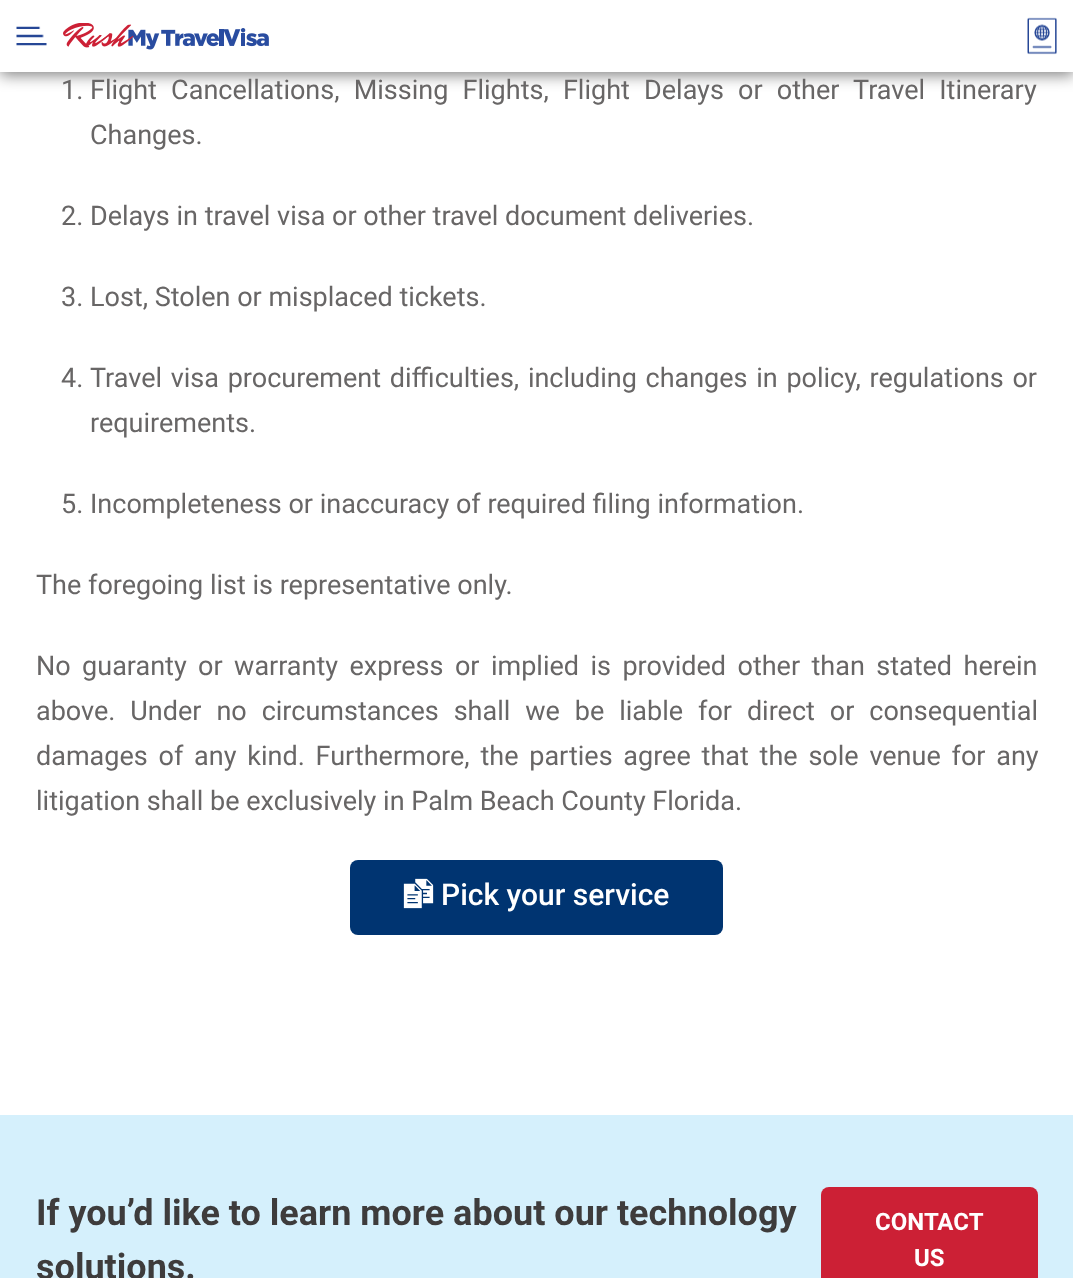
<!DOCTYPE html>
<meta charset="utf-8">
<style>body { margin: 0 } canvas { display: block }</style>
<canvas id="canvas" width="1073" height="1278"></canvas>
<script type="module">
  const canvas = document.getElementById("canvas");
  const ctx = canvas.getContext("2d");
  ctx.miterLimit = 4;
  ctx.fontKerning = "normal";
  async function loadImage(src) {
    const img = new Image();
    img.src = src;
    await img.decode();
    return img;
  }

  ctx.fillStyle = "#ffffff";
  ctx.fillRect(0, 0, 1073, 1278);
  ctx.fillStyle = "rgba(0, 0, 0, 0.5)";
  ctx.filter = "blur(7.5px)";
  ctx.beginPath();
  ctx.rect(0, 3, 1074, 72);
  ctx.fill();
  ctx.filter = "none";
  ctx.fillStyle = "#ffffff";
  ctx.fillRect(0, 0, 1073, 72);
  ctx.drawImage(await loadImage("img1.png"), 16, 26, 31, 20);
  ctx.drawImage(await loadImage("img2.png"), 63, 23, 206, 27);
  ctx.drawImage(await loadImage("img3.png"), 1027, 17, 30, 38);
  ctx.font = "27px Roboto";
  ctx.fillStyle = "#686666";
  ctx.fillText("1.", 61, 99);
  ctx.wordSpacing = "7.5px";
  ctx.fillText("Flight Cancellations, Missing Flights, Flight Delays or other Travel Itinerary", 90, 99);
  ctx.wordSpacing = "0px";
  ctx.fillText("Changes.", 90, 144);
  ctx.fillText("2. Delays in travel visa or other travel document deliveries.", 61, 225);
  ctx.fillText("3. Lost, Stolen or misplaced tickets.", 61, 306);
  ctx.fillText("4.", 61, 387);
  ctx.wordSpacing = "2px";
  ctx.fillText("Travel visa procurement difficulties, including changes in policy, regulations or", 90, 387);
  ctx.wordSpacing = "0px";
  ctx.fillText("requirements.", 90, 432);
  ctx.fillText("5. Incompleteness or inaccuracy of required filing information.", 61, 513);
  ctx.fillText("The foregoing list is representative only.", 36, 594);
  ctx.wordSpacing = "4.75px";
  ctx.fillText("No guaranty or warranty express or implied is provided other than stated herein", 36, 675);
  ctx.wordSpacing = "8.25px";
  ctx.fillText("above. Under no circumstances shall we be liable for direct or consequential", 36, 720);
  ctx.wordSpacing = "4.1px";
  ctx.fillText("damages of any kind. Furthermore, the parties agree that the sole venue for any", 36, 765);
  ctx.wordSpacing = "0px";
  ctx.fillText("litigation shall be exclusively in Palm Beach County Florida.", 36, 810);
  ctx.fillStyle = "#003471";
  ctx.beginPath();
  ctx.roundRect(350, 860, 373, 75, 8);
  ctx.fill();
  ctx.drawImage(await loadImage("img4.png"), 403, 878, 31, 31);
  ctx.font = "500 30px Roboto";
  ctx.fillStyle = "#ffffff";
  ctx.fillText("Pick your service", 441, 905);
  ctx.fillStyle = "#d5f0fc";
  ctx.fillRect(0, 1115, 1073, 163);
  ctx.font = "bold 36px Roboto";
  ctx.fillStyle = "#3e3c3c";
  ctx.fillText("If you’d like to learn more about our technology", 36, 1225);
  ctx.fillText("solutions.", 36, 1279);
  ctx.fillStyle = "#cc2035";
  ctx.beginPath();
  ctx.roundRect(821, 1187, 217, 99, 8);
  ctx.fill();
  ctx.font = "bold 24px Roboto";
  ctx.fillStyle = "#ffffff";
  ctx.fillText("CONTACT", 875, 1230);
  ctx.fillText("US", 914, 1266);
</script>
